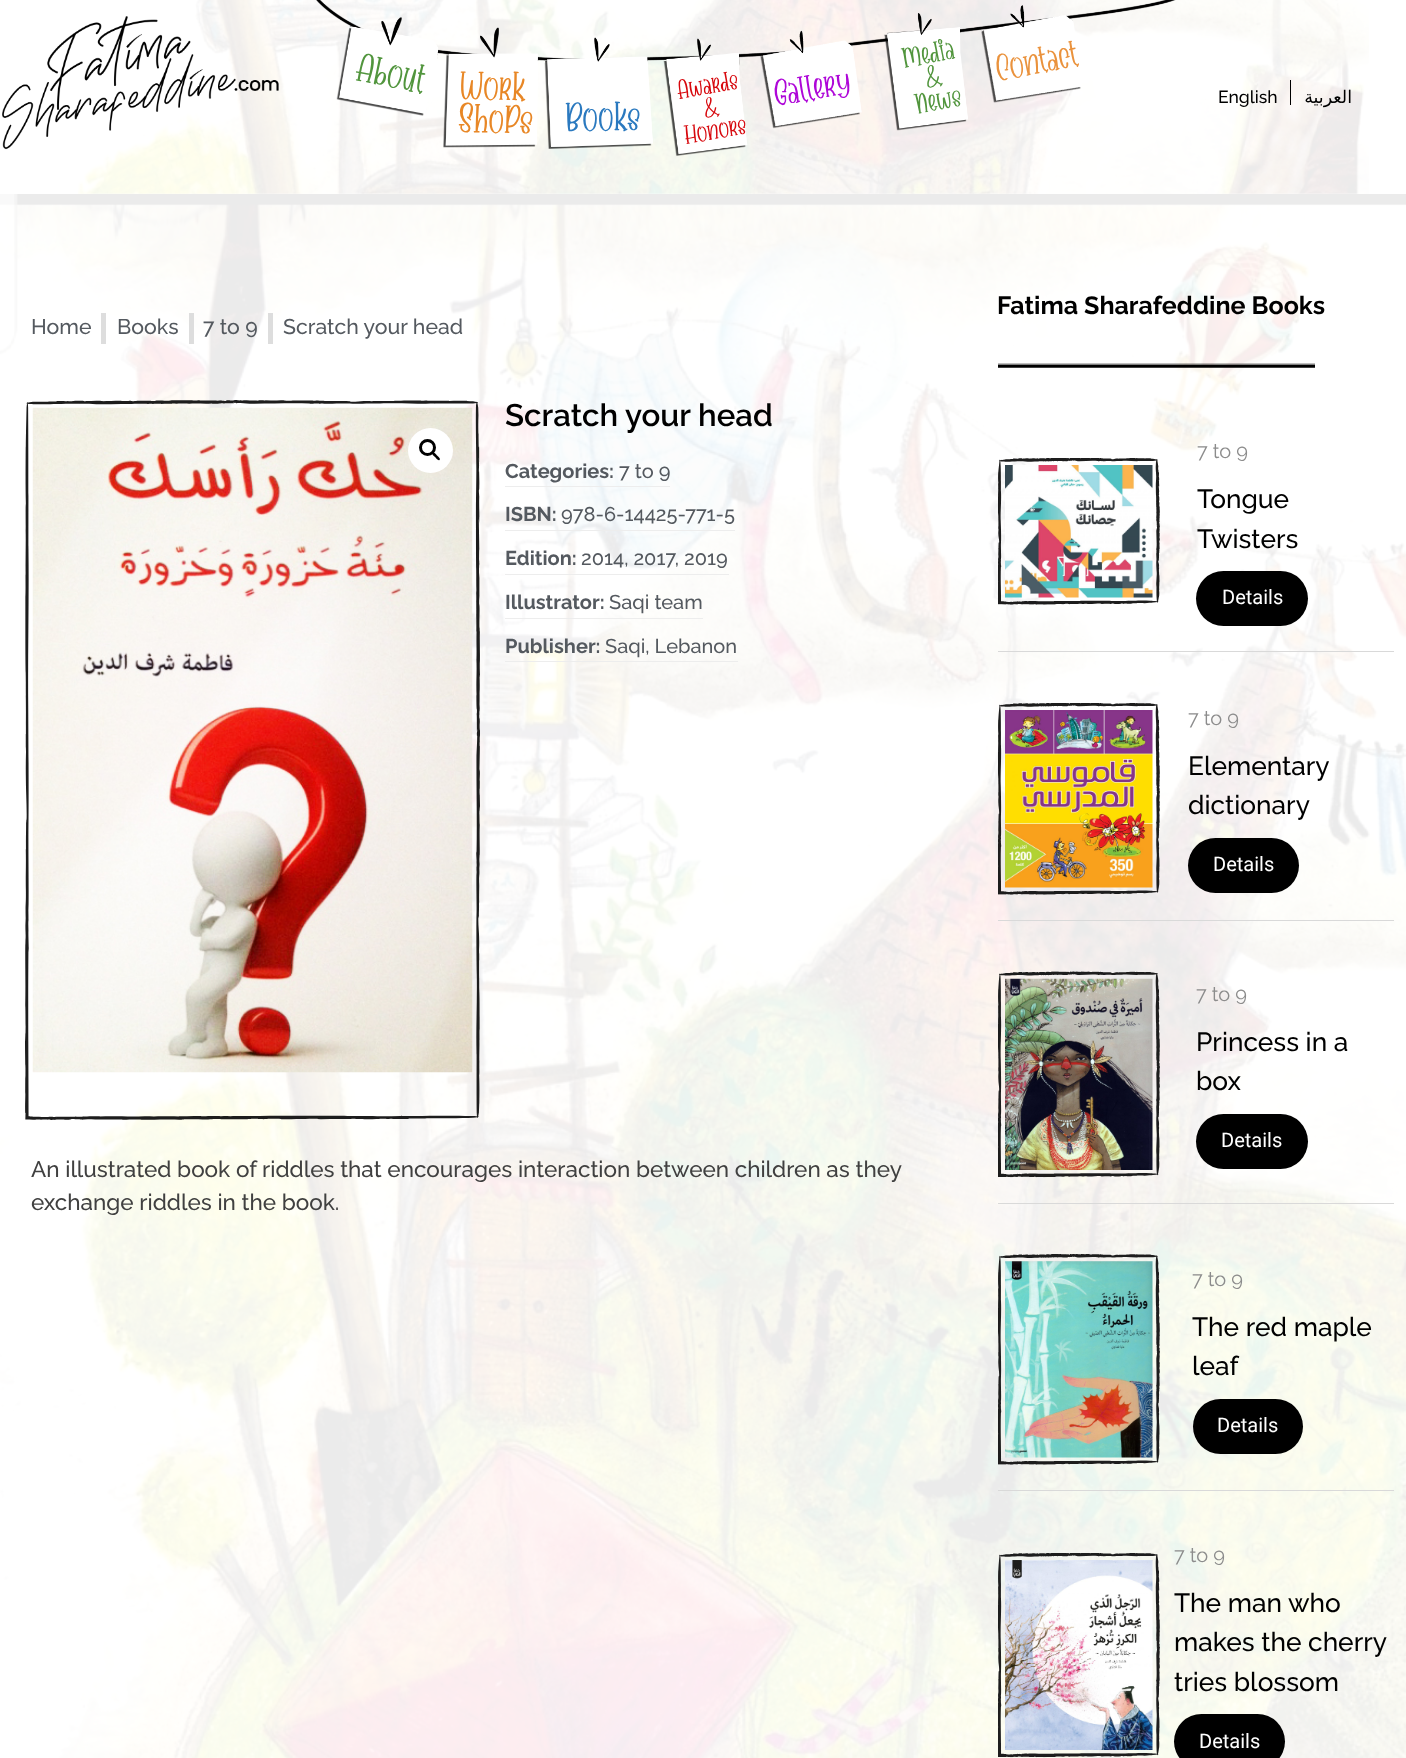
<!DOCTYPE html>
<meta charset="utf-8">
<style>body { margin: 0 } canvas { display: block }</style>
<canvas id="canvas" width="1406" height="1758"></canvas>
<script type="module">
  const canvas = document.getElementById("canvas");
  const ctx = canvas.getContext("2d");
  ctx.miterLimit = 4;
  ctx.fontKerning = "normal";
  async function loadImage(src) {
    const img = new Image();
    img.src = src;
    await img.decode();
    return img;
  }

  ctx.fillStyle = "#ffffff";
  ctx.fillRect(0, 0, 1406, 1758);
  ctx.drawImage(await loadImage("img1.png"), 78, 0, 1291, 194);
  ctx.drawImage(await loadImage("img2.png"), 2, 16, 277, 134);
  ctx.drawImage(await loadImage("img3.png"), 316, 0, 860, 61);
  ctx.drawImage(await loadImage("img4.png"), 336, 17, 103, 99);
  ctx.font = "41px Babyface";
  ctx.fillStyle = "#51953d";
  ctx.save();
  ctx.translate(355, 80);
  ctx.rotate(11 * Math.PI / 180);
  ctx.fillText("About", 0, 0);
  ctx.restore();
  ctx.drawImage(await loadImage("img5.png"), 443, 27, 96, 121);
  ctx.fillStyle = "#e88726";
  ctx.save();
  ctx.translate(459, 99);
  ctx.rotate(1 * Math.PI / 180);
  ctx.fillText("Work", 0, 0);
  ctx.restore();
  ctx.save();
  ctx.translate(458, 132);
  ctx.rotate(1 * Math.PI / 180);
  ctx.fillText("ShoPs", 0, 0);
  ctx.restore();
  ctx.drawImage(await loadImage("img6.png"), 663, 38, 85, 118);
  ctx.font = "27.5px Babyface";
  ctx.fillStyle = "#d7080d";
  ctx.save();
  ctx.translate(679, 99);
  ctx.rotate(-10 * Math.PI / 180);
  ctx.fillText("Awards", 0, 0);
  ctx.restore();
  ctx.save();
  ctx.translate(706, 118);
  ctx.rotate(-10 * Math.PI / 180);
  ctx.fillText("&", 0, 0);
  ctx.restore();
  ctx.save();
  ctx.translate(686, 144);
  ctx.rotate(-10 * Math.PI / 180);
  ctx.fillText("Honors", 0, 0);
  ctx.restore();
  ctx.drawImage(await loadImage("img7.png"), 760, 30, 102, 99);
  ctx.font = "37.5px Babyface";
  ctx.fillStyle = "#ae06d8";
  ctx.save();
  ctx.translate(776, 106);
  ctx.rotate(-10 * Math.PI / 180);
  ctx.fillText("Gallery", 0, 0);
  ctx.restore();
  ctx.drawImage(await loadImage("img8.png"), 884, 13, 84, 118);
  ctx.font = "30px Babyface";
  ctx.fillStyle = "#51953d";
  ctx.save();
  ctx.translate(904, 68);
  ctx.rotate(-11 * Math.PI / 180);
  ctx.fillText("Media", 0, 0);
  ctx.restore();
  ctx.save();
  ctx.translate(928, 88);
  ctx.rotate(-11 * Math.PI / 180);
  ctx.fillText("&", 0, 0);
  ctx.restore();
  ctx.save();
  ctx.translate(917, 114);
  ctx.rotate(-11 * Math.PI / 180);
  ctx.fillText("News", 0, 0);
  ctx.restore();
  ctx.drawImage(await loadImage("img9.png"), 981, 5, 100, 98);
  ctx.font = "37.5px Babyface";
  ctx.fillStyle = "#ea923c";
  ctx.save();
  ctx.translate(998, 81);
  ctx.rotate(-11 * Math.PI / 180);
  ctx.fillText("Contact", 0, 0);
  ctx.restore();
  ctx.drawImage(await loadImage("img10.png"), 544, 37, 109, 112);
  ctx.font = "41px Babyface";
  ctx.fillStyle = "#2a79bf";
  ctx.save();
  ctx.translate(565, 131);
  ctx.rotate(-1 * Math.PI / 180);
  ctx.fillText("Books", 0, 0);
  ctx.restore();
  ctx.fillStyle = "#000000";
  ctx.fillRect(1290, 80, 1, 25);
  ctx.font = "500 17.5px Raleway";
  ctx.fillText("English", 1218, 103);
  ctx.direction = "rtl";
  ctx.font = "17.5px DejaVu Sans";
  ctx.fillText("العربية", 1352, 103);
  ctx.drawImage(await loadImage("img11.png"), 0, 194, 1406, 1564);
  ctx.direction = "ltr";
  ctx.font = "500 21.25px Raleway";
  ctx.fillStyle = "#54595f";
  ctx.fillText("Home", 31, 334);
  ctx.fillStyle = "#dddddd";
  ctx.fillRect(101, 313, 5, 31);
  ctx.fillStyle = "#54595f";
  ctx.fillText("Books", 117, 334);
  ctx.fillStyle = "#dddddd";
  ctx.fillRect(189, 313, 5, 31);
  ctx.fillStyle = "#54595f";
  ctx.fillText("7 to 9", 203, 334);
  ctx.fillStyle = "#dddddd";
  ctx.fillRect(268, 313, 5, 31);
  ctx.fillStyle = "#54595f";
  ctx.fillText("Scratch your head", 283, 334);
  ctx.drawImage(await loadImage("img12.png"), 25, 400, 455, 720);
  ctx.drawImage(await loadImage("img13.png"), 32, 407, 441, 666);
  ctx.fillStyle = "#ffffff";
  ctx.beginPath();
  ctx.arc(430.5, 450.5, 22.5, 0, Math.PI * 2);
  ctx.fill();
  ctx.beginPath();
  ctx.arc(427.5, 447.5, 7, 0, Math.PI * 2);
  ctx.strokeStyle = "#000000";
  ctx.lineWidth = 3;
  ctx.stroke();
  ctx.fillStyle = "#000000";
  ctx.beginPath();
  ctx.moveTo(432.5, 452.5);
  ctx.bezierCurveTo(434, 451.5, 436, 454.5, 437, 455.5);
  ctx.bezierCurveTo(437.5, 456, 441, 458.5, 439.5, 460);
  ctx.bezierCurveTo(438, 461, 436, 458, 435, 457);
  ctx.bezierCurveTo(434.5, 456.5, 431, 454, 432.5, 452.5);
  ctx.closePath();
  ctx.fill();
  ctx.font = "600 31.25px Raleway";
  ctx.fillText("Scratch your head", 505, 426);
  ctx.fillStyle = "#ededed";
  ctx.fillRect(505, 486, 165, 1);
  ctx.font = "bold 20px Raleway";
  ctx.fillStyle = "#54595f";
  ctx.fillText("Categories:", 505, 478);
  ctx.font = "500 20px Raleway";
  ctx.fillText("7 to 9", 619, 478);
  ctx.fillStyle = "#ededed";
  ctx.fillRect(505, 530, 230, 1);
  ctx.font = "bold 20px Raleway";
  ctx.fillStyle = "#54595f";
  ctx.fillText("ISBN:", 505, 521);
  ctx.font = "500 20px Raleway";
  ctx.fillText("978-6-14425-771-5", 561, 521);
  ctx.fillStyle = "#ededed";
  ctx.fillRect(505, 574, 224, 1);
  ctx.font = "bold 20px Raleway";
  ctx.fillStyle = "#54595f";
  ctx.fillText("Edition:", 505, 565);
  ctx.font = "500 20px Raleway";
  ctx.fillText("2014, 2017, 2019", 581, 565);
  ctx.fillStyle = "#ededed";
  ctx.fillRect(505, 618, 198, 1);
  ctx.font = "bold 20px Raleway";
  ctx.fillStyle = "#54595f";
  ctx.fillText("Illustrator:", 505, 609);
  ctx.font = "500 20px Raleway";
  ctx.fillText("Saqi team", 609, 609);
  ctx.fillStyle = "#ededed";
  ctx.fillRect(505, 661, 233, 1);
  ctx.font = "bold 20px Raleway";
  ctx.fillStyle = "#54595f";
  ctx.fillText("Publisher:", 505, 653);
  ctx.font = "500 20px Raleway";
  ctx.fillText("Saqi, Lebanon", 605, 653);
  ctx.font = "500 22.5px Raleway";
  ctx.fillStyle = "#404040";
  ctx.fillText("An illustrated book of riddles that encourages interaction between children as they", 31, 1177);
  ctx.fillText("exchange riddles in the book.", 31, 1210);
  ctx.font = "bold 25px Raleway";
  ctx.fillStyle = "#000000";
  ctx.fillText("Fatima Sharafeddine Books", 997, 314);
  ctx.drawImage(await loadImage("img14.png"), 998, 363, 317, 5);
  ctx.fillStyle = "#d9d9d9";
  ctx.fillRect(998, 651, 396, 1);
  ctx.drawImage(await loadImage("img15.png"), 998, 458, 162, 147);
  ctx.drawImage(await loadImage("img16.png"), 1005, 465, 148, 133);
  ctx.font = "20px Raleway";
  ctx.fillStyle = "#8c8c8c";
  ctx.fillText("7 to 9", 1197, 458);
  ctx.font = "500 26.25px Raleway";
  ctx.fillStyle = "#000000";
  ctx.fillText("Tongue", 1197, 508);
  ctx.fillText("Twisters", 1197, 548);
  ctx.beginPath();
  ctx.roundRect(1196, 571, 112, 55, 27.5);
  ctx.fill();
  ctx.font = "20px Roboto";
  ctx.fillStyle = "#ffffff";
  ctx.fillText("Details", 1222, 604);
  ctx.fillStyle = "#d9d9d9";
  ctx.fillRect(998, 920, 396, 1);
  ctx.drawImage(await loadImage("img17.png"), 998, 703, 162, 192);
  ctx.drawImage(await loadImage("img18.png"), 1005, 710, 148, 178);
  ctx.font = "20px Raleway";
  ctx.fillStyle = "#8c8c8c";
  ctx.fillText("7 to 9", 1188, 725);
  ctx.font = "500 26.25px Raleway";
  ctx.fillStyle = "#000000";
  ctx.fillText("Elementary", 1188, 775);
  ctx.fillText("dictionary", 1188, 814);
  ctx.beginPath();
  ctx.roundRect(1188, 838, 111, 55, 27.5);
  ctx.fill();
  ctx.font = "20px Roboto";
  ctx.fillStyle = "#ffffff";
  ctx.fillText("Details", 1213, 871);
  ctx.fillStyle = "#d9d9d9";
  ctx.fillRect(998, 1203, 396, 1);
  ctx.drawImage(await loadImage("img19.png"), 998, 971, 162, 207);
  ctx.drawImage(await loadImage("img20.png"), 1005, 978, 148, 192);
  ctx.font = "20px Raleway";
  ctx.fillStyle = "#8c8c8c";
  ctx.fillText("7 to 9", 1196, 1001);
  ctx.font = "500 26.25px Raleway";
  ctx.fillStyle = "#000000";
  ctx.fillText("Princess in a", 1196, 1051);
  ctx.fillText("box", 1196, 1090);
  ctx.beginPath();
  ctx.roundRect(1196, 1114, 112, 55, 27.5);
  ctx.fill();
  ctx.font = "20px Roboto";
  ctx.fillStyle = "#ffffff";
  ctx.fillText("Details", 1221, 1147);
  ctx.fillStyle = "#d9d9d9";
  ctx.fillRect(998, 1490, 396, 1);
  ctx.drawImage(await loadImage("img21.png"), 998, 1254, 162, 211);
  ctx.drawImage(await loadImage("img22.png"), 1005, 1261, 148, 197);
  ctx.font = "20px Raleway";
  ctx.fillStyle = "#8c8c8c";
  ctx.fillText("7 to 9", 1192, 1286);
  ctx.font = "500 26.25px Raleway";
  ctx.fillStyle = "#000000";
  ctx.fillText("The red maple", 1192, 1336);
  ctx.fillText("leaf", 1192, 1375);
  ctx.beginPath();
  ctx.roundRect(1193, 1399, 110, 55, 27.5);
  ctx.fill();
  ctx.font = "20px Roboto";
  ctx.fillStyle = "#ffffff";
  ctx.fillText("Details", 1217, 1432);
  ctx.drawImage(await loadImage("img23.png"), 998, 1553, 162, 205);
  ctx.drawImage(await loadImage("img24.png"), 1005, 1560, 148, 190);
  ctx.font = "20px Raleway";
  ctx.fillStyle = "#8c8c8c";
  ctx.fillText("7 to 9", 1174, 1562);
  ctx.font = "500 26.25px Raleway";
  ctx.fillStyle = "#000000";
  ctx.fillText("The man who", 1174, 1612);
  ctx.fillText("makes the cherry", 1174, 1651);
  ctx.fillText("tries blossom", 1174, 1691);
  ctx.beginPath();
  ctx.roundRect(1174, 1714, 111, 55, 27.5);
  ctx.fill();
  ctx.font = "20px Roboto";
  ctx.fillStyle = "#ffffff";
  ctx.fillText("Details", 1199, 1748);
</script>
